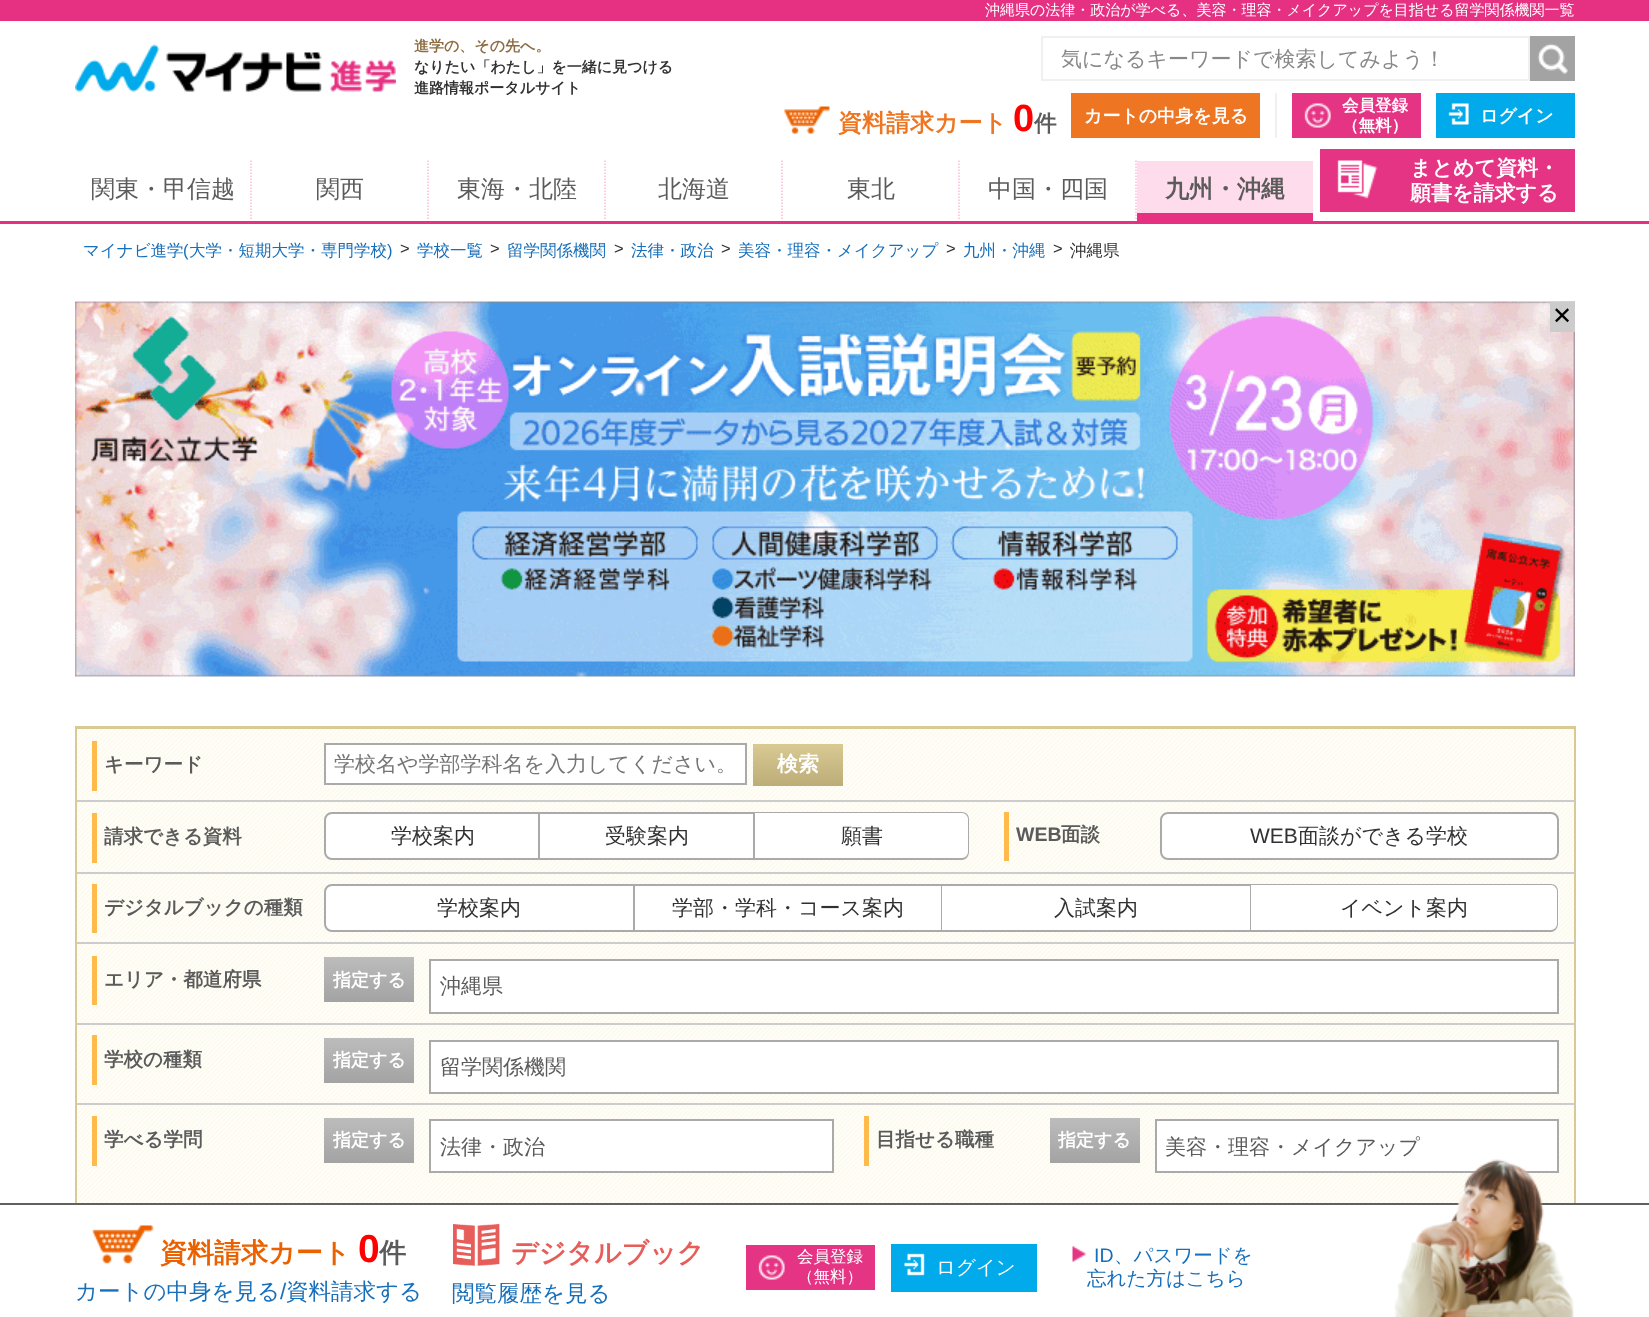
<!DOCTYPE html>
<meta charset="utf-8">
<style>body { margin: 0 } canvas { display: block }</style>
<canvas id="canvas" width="1649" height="1317"></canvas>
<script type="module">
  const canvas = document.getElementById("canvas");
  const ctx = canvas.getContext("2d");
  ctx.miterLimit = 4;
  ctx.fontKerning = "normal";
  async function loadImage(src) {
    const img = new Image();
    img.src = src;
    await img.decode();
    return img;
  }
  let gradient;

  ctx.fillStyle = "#ffffff";
  ctx.fillRect(0, 0, 1649, 1317);
  ctx.fillStyle = "#e63082";
  ctx.fillRect(0, 0, 1649, 21);
  ctx.font = "500 15px WenQuanYi Zen Hei";
  ctx.fillStyle = "#ffffff";
  ctx.fillText("沖縄県の法律・政治が学べる、美容・理容・メイクアップを目指せる留学関係機関一覧", 985, 15);
  ctx.drawImage(await loadImage("img1.png"), 75, 44, 321, 48);
  ctx.font = "bold 15px WenQuanYi Zen Hei";
  ctx.fillStyle = "#8e6d43";
  ctx.fillText("進学の、その先へ。", 414, 51);
  ctx.fillStyle = "#313131";
  ctx.fillText("なりたい「わたし」を一緒に見つける", 414, 72);
  ctx.fillText("進路情報ポータルサイト", 414, 93);
  ctx.strokeStyle = "#f0f0f0";
  ctx.lineWidth = 2;
  ctx.strokeRect(1042, 37, 487, 43);
  ctx.font = "500 21px WenQuanYi Zen Hei";
  ctx.fillStyle = "#888888";
  ctx.fillText("気になるキーワードで検索してみよう！", 1061, 66);
  ctx.fillStyle = "#a3a3a3";
  ctx.fillRect(1530, 36, 45, 45);
  ctx.drawImage(await loadImage("img2.png"), 1537, 43, 31, 31);
  ctx.drawImage(await loadImage("img3.png"), 784, 106, 46, 28);
  ctx.font = "bold 24px WenQuanYi Zen Hei";
  ctx.fillStyle = "#ee7622";
  ctx.fillText("資料請求カート", 838, 131);
  ctx.font = "bold 38px Liberation Sans";
  ctx.fillStyle = "#ff0000";
  ctx.fillText("0", 1013, 131);
  ctx.font = "bold 22.5px WenQuanYi Zen Hei";
  ctx.fillStyle = "#5b5b5b";
  ctx.fillText("件", 1034, 131);
  ctx.fillStyle = "#ee7622";
  ctx.fillRect(1071, 93, 189, 45);
  ctx.font = "bold 18px WenQuanYi Zen Hei";
  ctx.fillStyle = "#ffffff";
  ctx.fillText("カートの中身を見る", 1084, 122);
  ctx.fillStyle = "#f0f0f0";
  ctx.fillRect(1275, 93, 2, 45);
  ctx.fillStyle = "#e63484";
  ctx.fillRect(1292, 93, 129, 45);
  ctx.drawImage(await loadImage("img4.png"), 1304, 103, 27, 25);
  ctx.font = "bold 16.5px WenQuanYi Zen Hei";
  ctx.fillStyle = "#ffffff";
  ctx.fillText("会員登録", 1342, 111);
  ctx.fillText("（無料）", 1342, 131);
  ctx.fillStyle = "#00aaeb";
  ctx.fillRect(1436, 93, 139, 45);
  ctx.drawImage(await loadImage("img5.png"), 1448, 103, 21, 22);
  ctx.font = "bold 18px WenQuanYi Zen Hei";
  ctx.fillStyle = "#ffffff";
  ctx.fillText("ログイン", 1480, 122);
  ctx.fillStyle = "#e63484";
  ctx.fillRect(1320, 149, 255, 63);
  ctx.drawImage(await loadImage("img6.png"), 1337, 160, 41, 39);
  ctx.font = "bold 21px WenQuanYi Zen Hei";
  ctx.fillStyle = "#ffffff";
  ctx.fillText("まとめて資料・", 1410, 175);
  ctx.fillText("願書を請求する", 1410, 200);
  ctx.fillStyle = "#e63082";
  ctx.fillRect(0, 221, 1649, 3);
  ctx.font = "500 24px WenQuanYi Zen Hei";
  ctx.fillStyle = "#5b5b5b";
  ctx.fillText("関東・甲信越", 91, 197);
  ctx.beginPath();
  ctx.moveTo(251, 160.5);
  ctx.lineTo(251, 220.5);
  ctx.strokeStyle = "#ffbad9";
  ctx.lineWidth = 1.5;
  ctx.setLineDash([1.5, 1.5]);
  ctx.stroke();
  ctx.fillText("関西", 316, 197);
  ctx.beginPath();
  ctx.moveTo(428, 160.5);
  ctx.lineTo(428, 220.5);
  ctx.stroke();
  ctx.fillText("東海・北陸", 457, 197);
  ctx.beginPath();
  ctx.moveTo(605, 160.5);
  ctx.lineTo(605, 220.5);
  ctx.stroke();
  ctx.fillText("北海道", 658, 197);
  ctx.beginPath();
  ctx.moveTo(782, 160.5);
  ctx.lineTo(782, 220.5);
  ctx.stroke();
  ctx.fillText("東北", 847, 197);
  ctx.beginPath();
  ctx.moveTo(959, 160.5);
  ctx.lineTo(959, 220.5);
  ctx.stroke();
  ctx.fillText("中国・四国", 988, 197);
  ctx.beginPath();
  ctx.moveTo(1136, 160.5);
  ctx.lineTo(1136, 220.5);
  ctx.stroke();
  ctx.fillStyle = "#ffdcec";
  ctx.fillRect(1137, 161, 176, 52);
  ctx.font = "bold 24px WenQuanYi Zen Hei";
  ctx.fillStyle = "#5b5b5b";
  ctx.fillText("九州・沖縄", 1165, 197);
  ctx.fillStyle = "#e63082";
  ctx.fillRect(1137, 213, 176, 8);
  ctx.font = "500 16.5px WenQuanYi Zen Hei";
  ctx.fillStyle = "#176fba";
  ctx.fillText("マイナビ進学", 83, 256);
  ctx.font = "16.5px Liberation Sans";
  ctx.fillText("(", 183, 256);
  ctx.font = "500 16.5px WenQuanYi Zen Hei";
  ctx.fillText("大学・短期大学・専門学校", 189, 256);
  ctx.font = "16.5px Liberation Sans";
  ctx.fillText(")", 387, 256);
  ctx.fillStyle = "#313131";
  ctx.fillText(">", 400, 254);
  ctx.font = "500 16.5px WenQuanYi Zen Hei";
  ctx.fillStyle = "#176fba";
  ctx.fillText("学校一覧", 417, 256);
  ctx.font = "16.5px Liberation Sans";
  ctx.fillStyle = "#313131";
  ctx.fillText(">", 490, 254);
  ctx.font = "500 16.5px WenQuanYi Zen Hei";
  ctx.fillStyle = "#176fba";
  ctx.fillText("留学関係機関", 507, 256);
  ctx.font = "16.5px Liberation Sans";
  ctx.fillStyle = "#313131";
  ctx.fillText(">", 614, 254);
  ctx.font = "500 16.5px WenQuanYi Zen Hei";
  ctx.fillStyle = "#176fba";
  ctx.fillText("法律・政治", 631, 256);
  ctx.font = "16.5px Liberation Sans";
  ctx.fillStyle = "#313131";
  ctx.fillText(">", 721, 254);
  ctx.font = "500 16.5px WenQuanYi Zen Hei";
  ctx.fillStyle = "#176fba";
  ctx.fillText("美容・理容・メイクアップ", 738, 256);
  ctx.font = "16.5px Liberation Sans";
  ctx.fillStyle = "#313131";
  ctx.fillText(">", 946, 254);
  ctx.font = "500 16.5px WenQuanYi Zen Hei";
  ctx.fillStyle = "#176fba";
  ctx.fillText("九州・沖縄", 963, 256);
  ctx.font = "16.5px Liberation Sans";
  ctx.fillStyle = "#313131";
  ctx.fillText(">", 1053, 254);
  ctx.font = "500 16.5px WenQuanYi Zen Hei";
  ctx.fillText("沖縄県", 1070, 256);
  ctx.drawImage(await loadImage("img7.png"), 75, 301, 1500, 376);
  ctx.fillStyle = "#cccccc";
  ctx.fillRect(1550, 302, 25, 30);
  ctx.font = "24px DejaVu Sans";
  ctx.fillStyle = "#000000";
  ctx.fillText("✕", 1552, 324);
  ctx.drawImage(await loadImage("img8.png"), 77, 729, 1497, 474);
  ctx.fillStyle = "#d9c993";
  ctx.fillRect(75, 726, 1500, 3);
  ctx.fillRect(1574, 726, 2, 477);
  ctx.fillRect(75, 726, 2, 477);
  ctx.fillStyle = "#ffba4c";
  ctx.fillRect(92, 741, 5, 50);
  ctx.font = "bold 19.5px WenQuanYi Zen Hei";
  ctx.fillStyle = "#5b5b5b";
  ctx.fillText("キーワード", 104, 771);
  ctx.fillStyle = "#ffffff";
  ctx.beginPath();
  ctx.rect(325, 744, 421, 40);
  ctx.fill();
  ctx.strokeStyle = "#aaaaaa";
  ctx.lineWidth = 2;
  ctx.setLineDash([]);
  ctx.stroke();
  ctx.font = "500 21px WenQuanYi Zen Hei";
  ctx.fillStyle = "#757575";
  ctx.fillText("学校名や学部学科名を入力してください。", 334, 771);
  gradient = ctx.createLinearGradient(798, 744, 798, 786);
  gradient.addColorStop(0, "#d9c993");
  gradient.addColorStop(1, "#bcac77");
  ctx.fillStyle = gradient;
  ctx.fillRect(753, 744, 90, 42);
  ctx.font = "bold 21px WenQuanYi Zen Hei";
  ctx.fillStyle = "#ffffff";
  ctx.fillText("検索", 777, 771);
  ctx.fillStyle = "#ffba4c";
  ctx.fillRect(92, 813, 5, 50);
  ctx.font = "bold 19.5px WenQuanYi Zen Hei";
  ctx.fillStyle = "#5b5b5b";
  ctx.fillText("請求できる資料", 104, 843);
  ctx.fillStyle = "#cccccc";
  ctx.fillRect(77, 800, 1498, 2);
  ctx.fillStyle = "#ffffff";
  ctx.beginPath();
  ctx.roundRect(325, 813, 214, 46, [7, 0, 0, 7]);
  ctx.fill();
  ctx.stroke();
  ctx.font = "500 21px WenQuanYi Zen Hei";
  ctx.fillStyle = "#313131";
  ctx.fillText("学校案内", 391, 843);
  ctx.fillStyle = "#ffffff";
  ctx.fillRect(540, 814, 213, 44);
  ctx.fillStyle = "#aaaaaa";
  ctx.fillRect(540, 812, 215, 2);
  ctx.fillRect(753, 812, 2, 48);
  ctx.fillRect(540, 858, 215, 2);
  ctx.fillStyle = "#313131";
  ctx.fillText("受験案内", 605, 843);
  ctx.fillStyle = "#ffffff";
  ctx.beginPath();
  ctx.roundRect(755, 812, 214, 48, [0, 8, 8, 0]);
  ctx.fill();
  ctx.fillStyle = "#aaaaaa";
  ctx.beginPath();
  ctx.moveTo(754, 812);
  ctx.lineTo(962, 812);
  ctx.bezierCurveTo(966, 812, 969, 815, 969, 819);
  ctx.lineTo(969, 852);
  ctx.bezierCurveTo(969, 856, 966, 860, 962, 860);
  ctx.lineTo(754, 860);
  ctx.closePath();
  ctx.moveTo(754, 813);
  ctx.lineTo(962, 813);
  ctx.bezierCurveTo(965, 813, 968, 816, 968, 819);
  ctx.lineTo(968, 852);
  ctx.bezierCurveTo(968, 855, 965, 858, 962, 858);
  ctx.lineTo(754, 858);
  ctx.closePath();
  ctx.fill("evenodd");
  ctx.fillStyle = "#313131";
  ctx.fillText("願書", 841, 843);
  ctx.fillStyle = "#ffba4c";
  ctx.fillRect(1004, 812, 5, 49);
  ctx.font = "bold 19.5px Liberation Sans";
  ctx.fillStyle = "#5b5b5b";
  ctx.fillText("WEB", 1016, 841);
  ctx.font = "bold 19.5px WenQuanYi Zen Hei";
  ctx.fillText("面談", 1061, 841);
  ctx.fillStyle = "#ffffff";
  ctx.beginPath();
  ctx.roundRect(1161, 813, 397, 46, 7);
  ctx.fill();
  ctx.stroke();
  ctx.font = "21px Liberation Sans";
  ctx.fillStyle = "#313131";
  ctx.fillText("WEB", 1250, 843);
  ctx.font = "500 21px WenQuanYi Zen Hei";
  ctx.fillText("面談ができる学校", 1298, 843);
  ctx.fillStyle = "#ffba4c";
  ctx.fillRect(92, 884, 5, 49);
  ctx.font = "bold 19.5px WenQuanYi Zen Hei";
  ctx.fillStyle = "#5b5b5b";
  ctx.fillText("デジタルブックの種類", 104, 914);
  ctx.fillStyle = "#cccccc";
  ctx.fillRect(77, 872, 1498, 2);
  ctx.fillStyle = "#ffffff";
  ctx.beginPath();
  ctx.roundRect(325, 885, 309, 46, [7, 0, 0, 7]);
  ctx.fill();
  ctx.stroke();
  ctx.font = "500 21px WenQuanYi Zen Hei";
  ctx.fillStyle = "#313131";
  ctx.fillText("学校案内", 437, 915);
  ctx.fillStyle = "#ffffff";
  ctx.fillRect(635, 886, 306, 44);
  ctx.fillStyle = "#aaaaaa";
  ctx.fillRect(635, 884, 616, 2);
  ctx.fillRect(941, 884, 1, 48);
  ctx.fillRect(635, 930, 307, 2);
  ctx.fillStyle = "#313131";
  ctx.fillText("学部・学科・コース案内", 672, 915);
  ctx.fillStyle = "#ffffff";
  ctx.fillRect(942, 886, 308, 44);
  ctx.fillStyle = "#aaaaaa";
  ctx.fillRect(1250, 884, 1, 48);
  ctx.fillRect(942, 930, 309, 2);
  ctx.fillStyle = "#313131";
  ctx.fillText("入試案内", 1054, 915);
  ctx.fillStyle = "#ffffff";
  ctx.beginPath();
  ctx.roundRect(1251, 884, 308, 48, [0, 8, 8, 0]);
  ctx.fill();
  ctx.fillStyle = "#aaaaaa";
  ctx.beginPath();
  ctx.moveTo(1251, 884);
  ctx.lineTo(1551, 884);
  ctx.bezierCurveTo(1555, 884, 1558, 887, 1558, 891);
  ctx.lineTo(1558, 924);
  ctx.bezierCurveTo(1558, 928, 1555, 932, 1551, 932);
  ctx.lineTo(1251, 932);
  ctx.closePath();
  ctx.moveTo(1251, 885);
  ctx.lineTo(1551, 885);
  ctx.bezierCurveTo(1554, 885, 1557, 888, 1557, 891);
  ctx.lineTo(1557, 924);
  ctx.bezierCurveTo(1557, 927, 1554, 930, 1551, 930);
  ctx.lineTo(1251, 930);
  ctx.closePath();
  ctx.fill("evenodd");
  ctx.fillStyle = "#313131";
  ctx.fillText("イベント案内", 1340, 915);
  ctx.fillStyle = "#ffba4c";
  ctx.fillRect(92, 956, 5, 49);
  ctx.font = "bold 19.5px WenQuanYi Zen Hei";
  ctx.fillStyle = "#5b5b5b";
  ctx.fillText("エリア・都道府県", 104, 986);
  ctx.fillStyle = "#cccccc";
  ctx.fillRect(77, 942, 1498, 2);
  gradient = ctx.createLinearGradient(369, 957, 369, 1002);
  gradient.addColorStop(0, "#bcbcbc");
  gradient.addColorStop(1, "#a3a3a3");
  ctx.fillStyle = gradient;
  ctx.fillRect(324, 957, 90, 45);
  ctx.font = "bold 18px WenQuanYi Zen Hei";
  ctx.fillStyle = "#ffffff";
  ctx.fillText("指定する", 333, 986);
  ctx.beginPath();
  ctx.rect(430, 960, 1128, 53);
  ctx.fill();
  ctx.stroke();
  ctx.font = "500 21px WenQuanYi Zen Hei";
  ctx.fillStyle = "#5b5b5b";
  ctx.fillText("沖縄県", 440, 993);
  ctx.fillStyle = "#ffba4c";
  ctx.fillRect(92, 1035, 5, 50);
  ctx.font = "bold 19.5px WenQuanYi Zen Hei";
  ctx.fillStyle = "#5b5b5b";
  ctx.fillText("学校の種類", 104, 1066);
  ctx.fillStyle = "#cccccc";
  ctx.fillRect(77, 1023, 1498, 2);
  gradient = ctx.createLinearGradient(369, 1038, 369, 1083);
  gradient.addColorStop(0, "#bcbcbc");
  gradient.addColorStop(1, "#a3a3a3");
  ctx.fillStyle = gradient;
  ctx.fillRect(324, 1038, 90, 45);
  ctx.font = "bold 18px WenQuanYi Zen Hei";
  ctx.fillStyle = "#ffffff";
  ctx.fillText("指定する", 333, 1066);
  ctx.beginPath();
  ctx.rect(430, 1041, 1128, 52);
  ctx.fill();
  ctx.stroke();
  ctx.font = "500 21px WenQuanYi Zen Hei";
  ctx.fillStyle = "#5b5b5b";
  ctx.fillText("留学関係機関", 440, 1074);
  ctx.fillStyle = "#ffba4c";
  ctx.fillRect(92, 1116, 5, 50);
  ctx.font = "bold 19.5px WenQuanYi Zen Hei";
  ctx.fillStyle = "#5b5b5b";
  ctx.fillText("学べる学問", 104, 1146);
  gradient = ctx.createLinearGradient(369, 1118, 369, 1163);
  gradient.addColorStop(0, "#bcbcbc");
  gradient.addColorStop(1, "#a3a3a3");
  ctx.fillStyle = gradient;
  ctx.fillRect(324, 1118, 90, 45);
  ctx.font = "bold 18px WenQuanYi Zen Hei";
  ctx.fillStyle = "#ffffff";
  ctx.fillText("指定する", 333, 1146);
  ctx.beginPath();
  ctx.rect(430, 1120, 403, 52);
  ctx.fill();
  ctx.stroke();
  ctx.font = "500 21px WenQuanYi Zen Hei";
  ctx.fillStyle = "#5b5b5b";
  ctx.fillText("法律・政治", 440, 1154);
  ctx.fillStyle = "#ffba4c";
  ctx.fillRect(864, 1116, 5, 50);
  ctx.font = "bold 19.5px WenQuanYi Zen Hei";
  ctx.fillStyle = "#5b5b5b";
  ctx.fillText("目指せる職種", 876, 1146);
  ctx.fillStyle = "#cccccc";
  ctx.fillRect(77, 1103, 1498, 2);
  gradient = ctx.createLinearGradient(1095, 1118, 1095, 1163);
  gradient.addColorStop(0, "#bcbcbc");
  gradient.addColorStop(1, "#a3a3a3");
  ctx.fillStyle = gradient;
  ctx.fillRect(1050, 1118, 90, 45);
  ctx.font = "bold 18px WenQuanYi Zen Hei";
  ctx.fillStyle = "#ffffff";
  ctx.fillText("指定する", 1058, 1146);
  ctx.beginPath();
  ctx.rect(1156, 1120, 402, 52);
  ctx.fill();
  ctx.stroke();
  ctx.font = "500 21px WenQuanYi Zen Hei";
  ctx.fillStyle = "#5b5b5b";
  ctx.fillText("美容・理容・メイクアップ", 1165, 1154);
  ctx.fillStyle = "#606060";
  ctx.fillRect(0, 1203, 1649, 2);
  ctx.drawImage(await loadImage("img9.png"), 92, 1225, 62, 39);
  ctx.font = "bold 27px WenQuanYi Zen Hei";
  ctx.fillStyle = "#eb6100";
  ctx.fillText("資料請求カート", 160, 1262);
  ctx.font = "bold 39px Liberation Sans";
  ctx.fillStyle = "#ff0000";
  ctx.fillText("0", 358, 1262);
  ctx.font = "bold 27px WenQuanYi Zen Hei";
  ctx.fillStyle = "#5b5b5b";
  ctx.fillText("件", 379, 1262);
  ctx.font = "500 22.5px WenQuanYi Zen Hei";
  ctx.fillStyle = "#176fba";
  ctx.fillText("カートの中身を見る", 75, 1299);
  ctx.font = "22.5px Liberation Sans";
  ctx.fillText("/", 280, 1299);
  ctx.font = "500 22.5px WenQuanYi Zen Hei";
  ctx.fillText("資料請求する", 286, 1299);
  ctx.drawImage(await loadImage("img10.png"), 453, 1224, 47, 42);
  ctx.font = "bold 27px WenQuanYi Zen Hei";
  ctx.fillStyle = "#e65d5a";
  ctx.fillText("デジタルブック", 511, 1262);
  ctx.font = "500 22.5px WenQuanYi Zen Hei";
  ctx.fillStyle = "#176fba";
  ctx.fillText("閲覧履歴を見る", 452, 1301);
  ctx.fillStyle = "#e63484";
  ctx.fillRect(746, 1245, 129, 45);
  ctx.drawImage(await loadImage("img11.png"), 758, 1255, 27, 25);
  ctx.font = "500 16.5px WenQuanYi Zen Hei";
  ctx.fillStyle = "#ffffff";
  ctx.fillText("会員登録", 797, 1262);
  ctx.fillText("（無料）", 797, 1282);
  ctx.fillStyle = "#00aaeb";
  ctx.fillRect(891, 1244, 146, 48);
  ctx.drawImage(await loadImage("img12.png"), 904, 1253, 21, 23);
  ctx.font = "500 19.5px WenQuanYi Zen Hei";
  ctx.fillStyle = "#ffffff";
  ctx.fillText("ログイン", 936, 1274);
  ctx.drawImage(await loadImage("img13.png"), 1072, 1245, 15, 18);
  ctx.font = "19.5px Liberation Sans";
  ctx.fillStyle = "#176fba";
  ctx.fillText("ID", 1094, 1262);
  ctx.font = "500 19.5px WenQuanYi Zen Hei";
  ctx.fillText("、パスワードを", 1114, 1262);
  ctx.fillText("忘れた方はこちら", 1087, 1285);
  ctx.drawImage(await loadImage("img14.png"), 1394, 1159, 180, 158);
</script>
